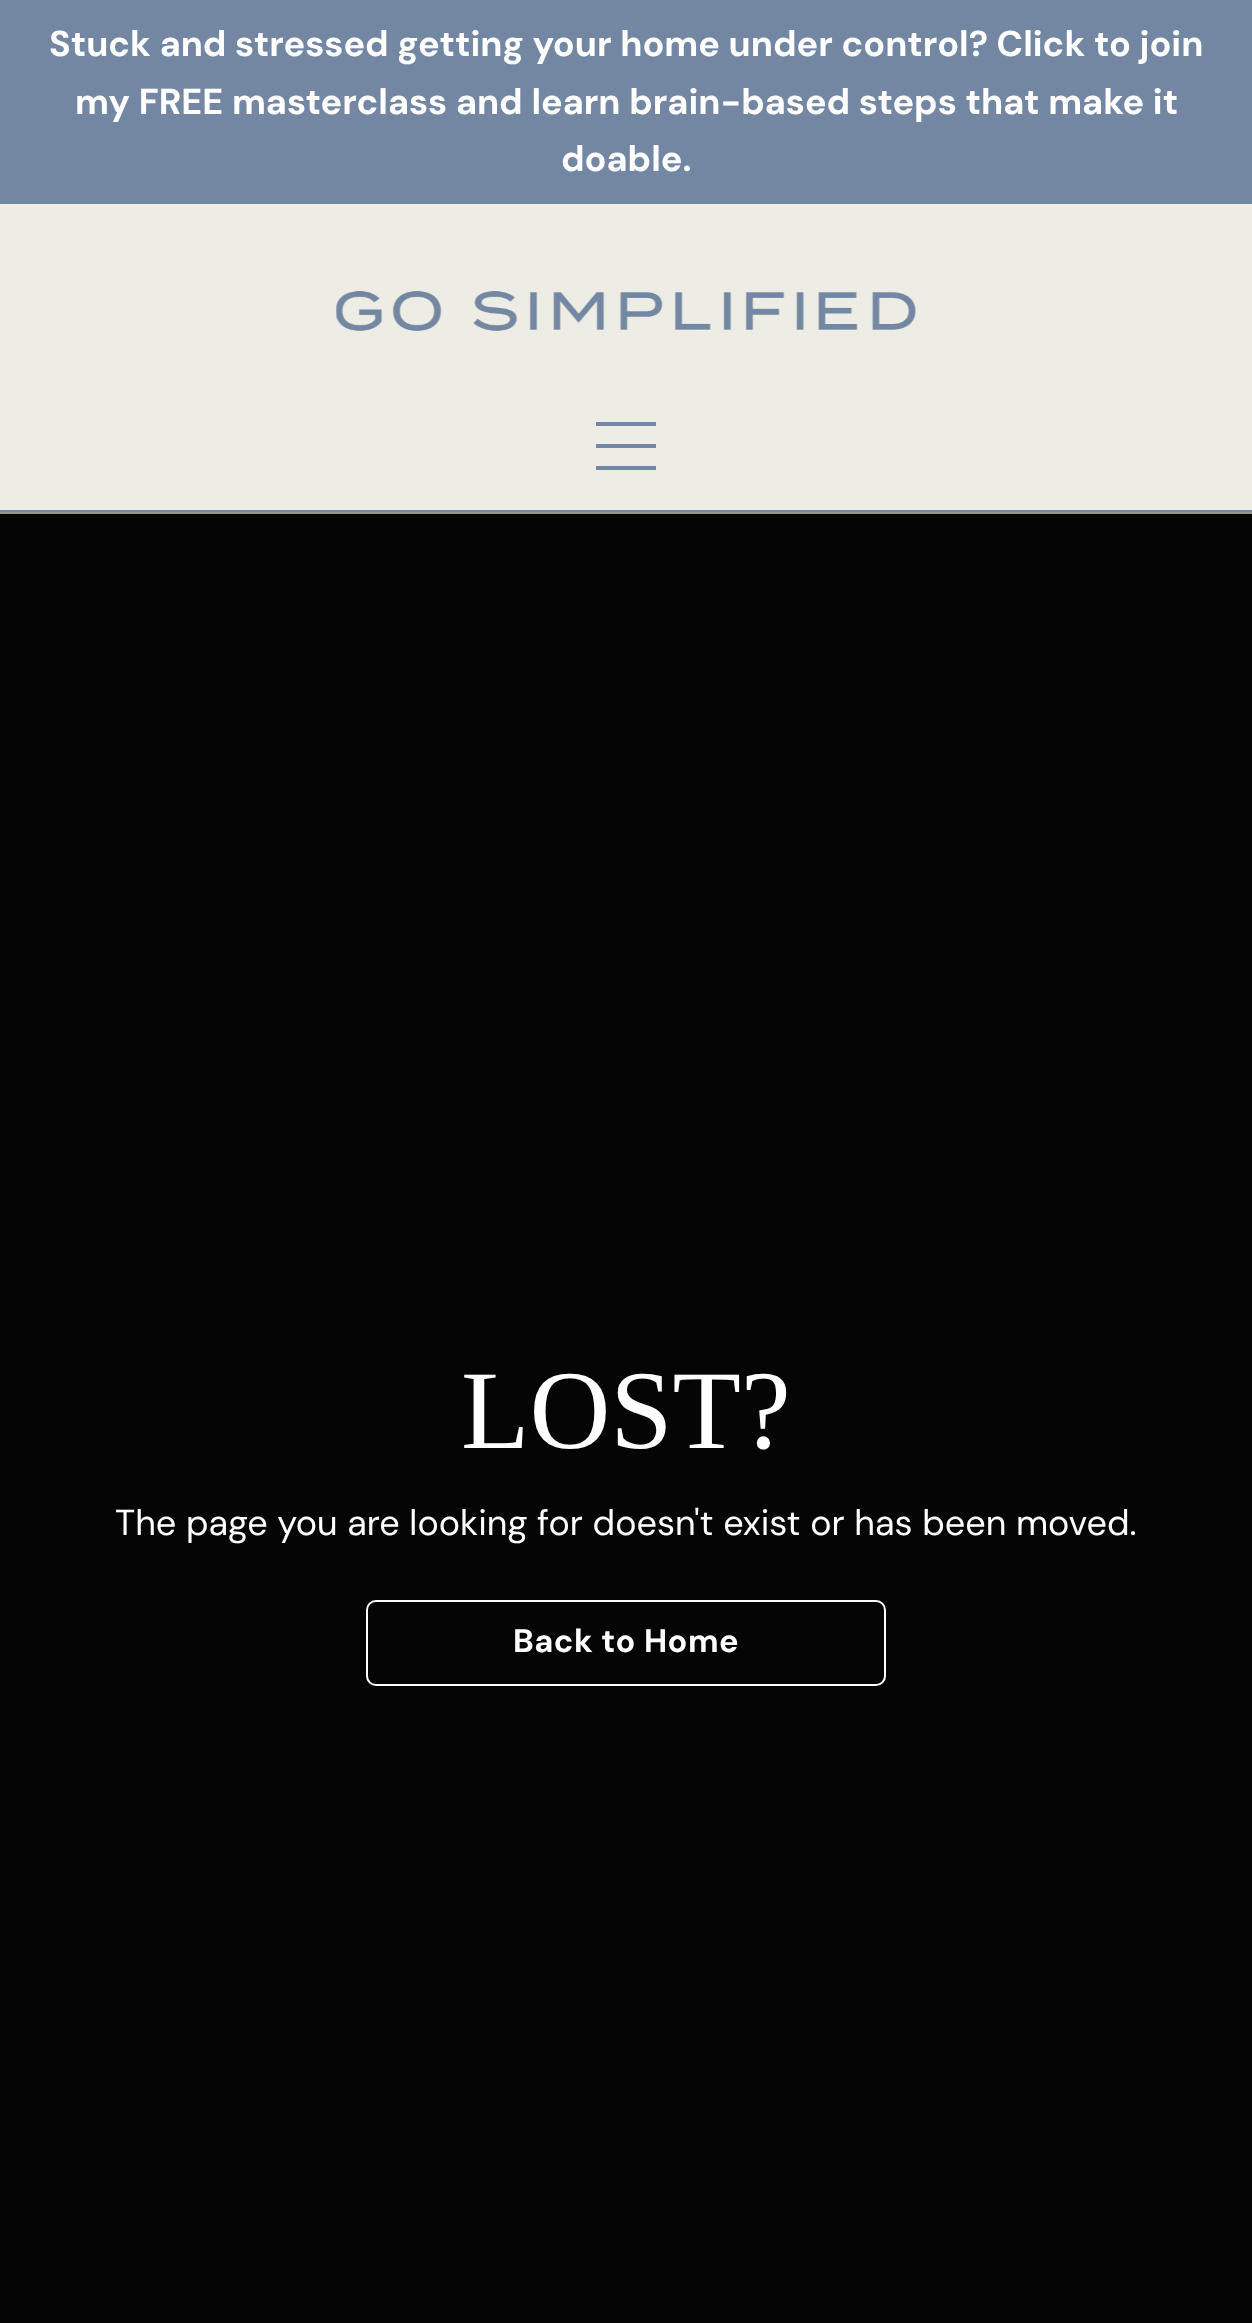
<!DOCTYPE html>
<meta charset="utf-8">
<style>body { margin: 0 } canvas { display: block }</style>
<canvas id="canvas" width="1252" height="2323"></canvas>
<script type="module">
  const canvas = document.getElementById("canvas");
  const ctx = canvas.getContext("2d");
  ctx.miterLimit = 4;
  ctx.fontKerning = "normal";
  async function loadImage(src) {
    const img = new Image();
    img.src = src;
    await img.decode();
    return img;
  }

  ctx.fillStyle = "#edede5";
  ctx.fillRect(0, 0, 1252, 2323);
  ctx.fillStyle = "#969691";
  ctx.fillRect(0, 512, 1252, 2);
  ctx.fillStyle = "#7387a3";
  ctx.fillRect(0, 0, 1252, 204);
  ctx.wordSpacing = "0.25px";
  ctx.font = "bold 36px DM Sans";
  ctx.fillStyle = "#ffffff";
  ctx.fillText("Stuck and stressed getting your home under control? Click to join", 49, 56);
  ctx.fillText("my FREE masterclass and learn brain-based steps that make it", 75, 114);
  ctx.wordSpacing = "0px";
  ctx.fillText("doable.", 561, 171);
  ctx.fillStyle = "#7387a3";
  ctx.fillRect(0, 510, 1252, 2);
  ctx.drawImage(await loadImage("img1.png"), 336, 291, 580, 40);
  ctx.fillRect(596, 422, 60, 4);
  ctx.fillRect(596, 444, 60, 4);
  ctx.fillRect(596, 466, 60, 4);
  ctx.fillStyle = "#050505";
  ctx.fillRect(0, 514, 1252, 1809);
  ctx.font = "112px Liberation Serif";
  ctx.fillStyle = "#ffffff";
  ctx.fillText("LOST?", 461, 1448);
  ctx.font = "36px DM Sans";
  ctx.fillText("The page you are looking for doesn't exist or has been moved.", 115, 1535);
  ctx.beginPath();
  ctx.roundRect(367, 1601, 518, 84, 9);
  ctx.strokeStyle = "#ffffff";
  ctx.lineWidth = 2;
  ctx.stroke();
  ctx.letterSpacing = "0.5px";
  ctx.font = "bold 32.5px 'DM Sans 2'";
  ctx.fillText("Back to Home", 513, 1652);
</script>
